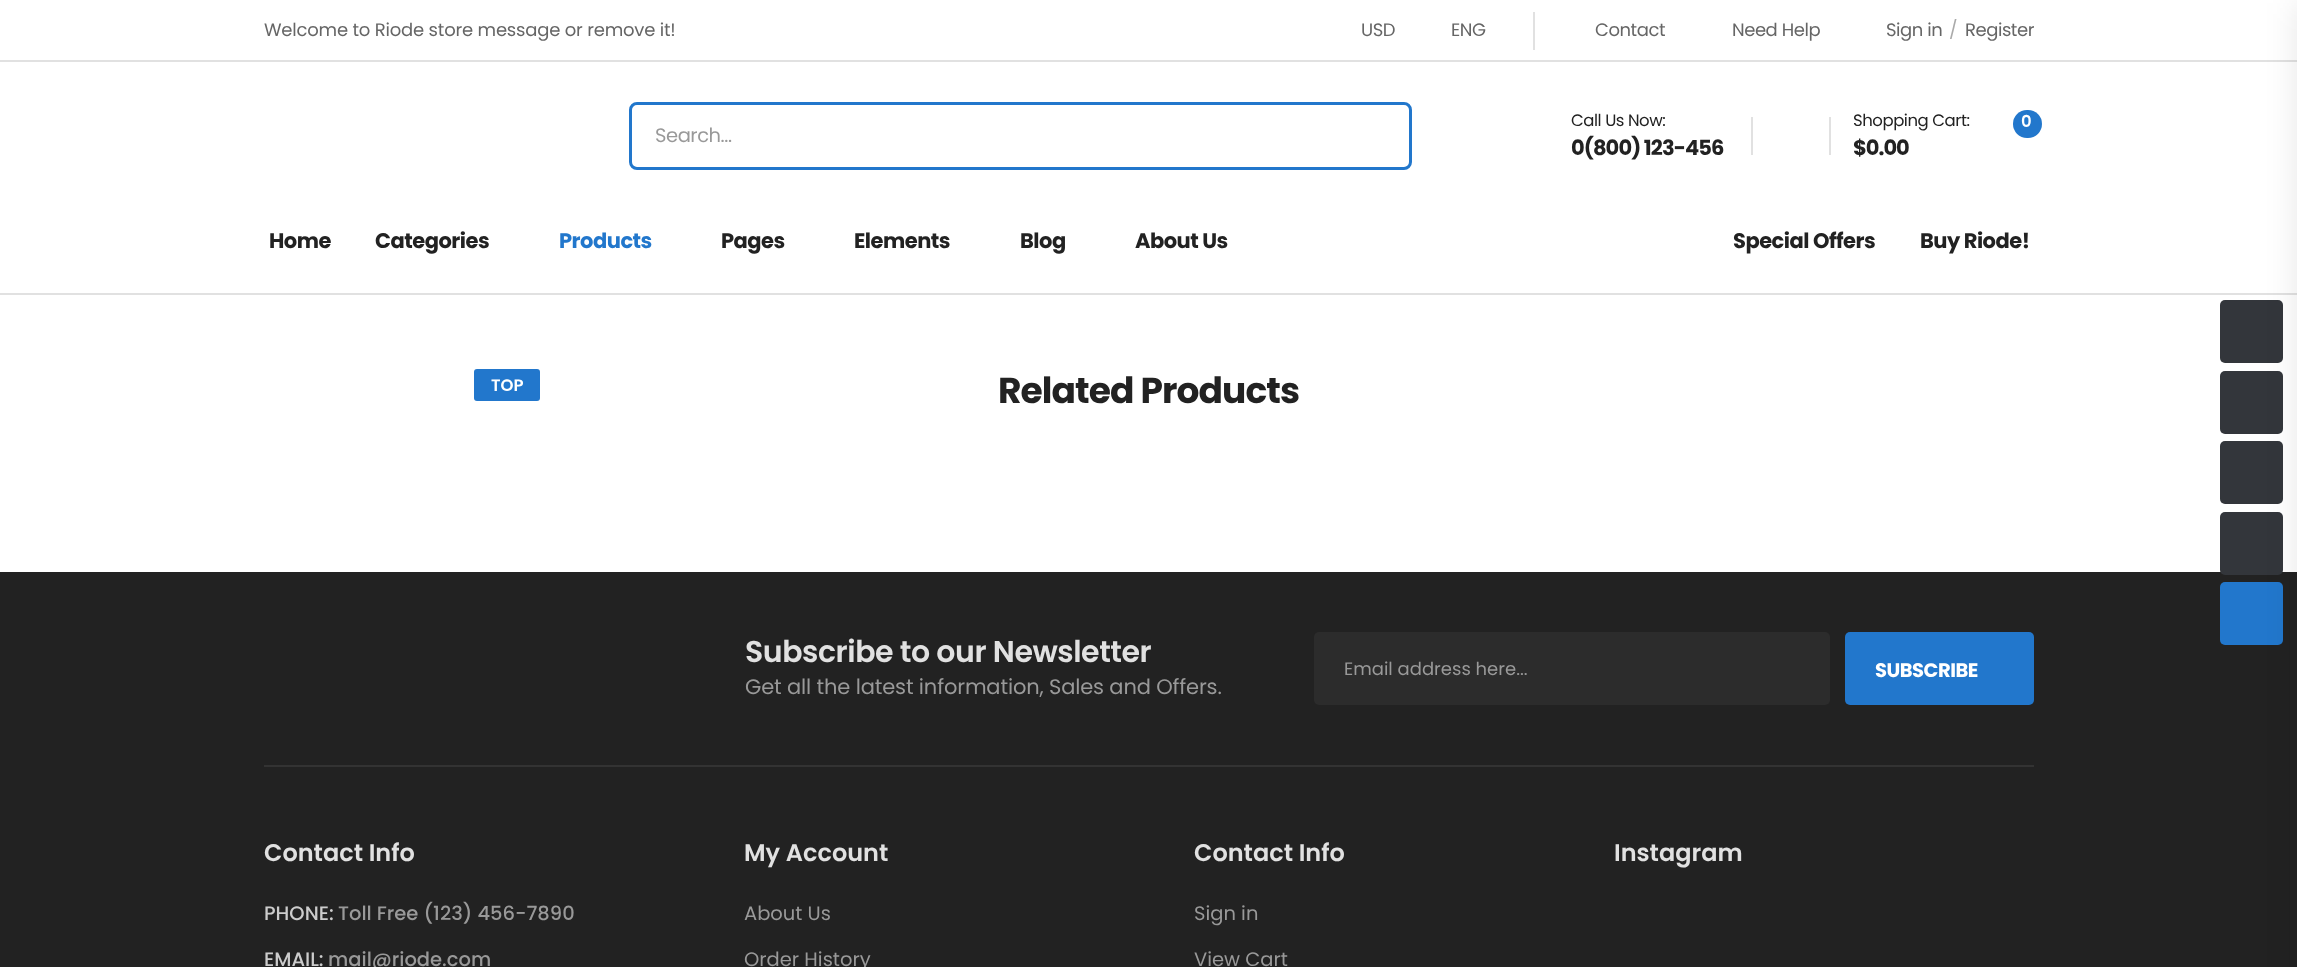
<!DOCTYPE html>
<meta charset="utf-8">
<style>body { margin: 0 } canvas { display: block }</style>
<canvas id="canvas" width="2297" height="967"></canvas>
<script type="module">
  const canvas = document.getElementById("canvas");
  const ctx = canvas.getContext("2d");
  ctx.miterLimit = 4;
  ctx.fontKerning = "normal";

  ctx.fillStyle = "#ffffff";
  ctx.fillRect(0, 0, 2297, 967);
  ctx.fillStyle = "#e1e1e1";
  ctx.fillRect(0, 293, 2297, 2);
  ctx.fillRect(0, 60, 2297, 2);
  ctx.letterSpacing = "-0.2px";
  ctx.font = "18px Poppins";
  ctx.fillStyle = "#666666";
  ctx.fillText("Welcome to Riode store message or remove it!", 264, 36);
  ctx.letterSpacing = "-0.45px";
  ctx.fillText("USD", 1361, 36);
  ctx.fillText("ENG", 1451, 36);
  ctx.fillStyle = "#e1e1e1";
  ctx.fillRect(1533, 12, 2, 38);
  ctx.fillStyle = "#666666";
  ctx.fillText("Contact", 1595, 36);
  ctx.fillText("Need Help", 1732, 36);
  ctx.fillText("Sign in", 1886, 36);
  ctx.fillStyle = "#aaaaaa";
  ctx.fillText("/", 1949, 36);
  ctx.fillStyle = "#666666";
  ctx.fillText("Register", 1965, 36);
  ctx.beginPath();
  ctx.roundRect(630.5, 103.5, 780, 65, 6.5);
  ctx.strokeStyle = "#2277cc";
  ctx.lineWidth = 3;
  ctx.stroke();
  ctx.font = "19.5px Poppins";
  ctx.fillStyle = "#999999";
  ctx.fillText("Search...", 655, 142);
  ctx.font = "16.5px Poppins";
  ctx.fillStyle = "#222222";
  ctx.fillText("Call Us Now:", 1571, 126);
  ctx.letterSpacing = "-0.9px";
  ctx.font = "bold 21px Poppins";
  ctx.fillText("0(800) 123-456", 1571, 155);
  ctx.fillStyle = "#e1e1e1";
  ctx.fillRect(1751, 117, 2, 38);
  ctx.fillRect(1829, 117, 2, 38);
  ctx.letterSpacing = "-0.45px";
  ctx.font = "16.5px Poppins";
  ctx.fillStyle = "#222222";
  ctx.fillText("Shopping Cart:", 1853, 126);
  ctx.letterSpacing = "-1px";
  ctx.font = "bold 21px Poppins";
  ctx.fillText("$0.00", 1853, 155);
  ctx.fillStyle = "#2277cc";
  ctx.beginPath();
  ctx.roundRect(2013, 110, 29, 28, 14);
  ctx.fill();
  ctx.letterSpacing = "-0.45px";
  ctx.font = "600 16.5px Poppins";
  ctx.fillStyle = "#ffffff";
  ctx.fillText("0", 2021, 127);
  ctx.fillStyle = "#33363b";
  ctx.beginPath();
  ctx.roundRect(2220, 300, 63, 63, 5);
  ctx.fill();
  ctx.beginPath();
  ctx.roundRect(2220, 371, 63, 63, 5);
  ctx.fill();
  ctx.beginPath();
  ctx.roundRect(2220, 441, 63, 63, 5);
  ctx.fill();
  ctx.fillStyle = "#222222";
  ctx.fillRect(0, 572, 2297, 395);
  ctx.fillStyle = "#33363b";
  ctx.beginPath();
  ctx.roundRect(2220, 512, 63, 63, 5);
  ctx.fill();
  ctx.fillStyle = "#2277cc";
  ctx.beginPath();
  ctx.roundRect(2220, 582, 63, 63, 5);
  ctx.fill();
  ctx.fillStyle = "rgba(0, 0, 0, 0.1)";
  ctx.filter = "blur(16.5px)";
  ctx.beginPath();
  ctx.rect(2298, 3, 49, 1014);
  ctx.fill();
  ctx.filter = "none";
  ctx.letterSpacing = "-0.5px";
  ctx.font = "bold 21px Poppins";
  ctx.fillStyle = "#222222";
  ctx.fillText("Home", 269, 248);
  ctx.fillText("Categories", 375, 248);
  ctx.fillStyle = "#2277cc";
  ctx.fillText("Products", 559, 248);
  ctx.fillStyle = "#222222";
  ctx.fillText("Pages", 721, 248);
  ctx.fillText("Elements", 854, 248);
  ctx.fillText("Blog", 1020, 248);
  ctx.fillText("About Us", 1135, 248);
  ctx.fillText("Special Offers", 1733, 248);
  ctx.fillText("Buy Riode!", 1920, 248);
  ctx.fillStyle = "#2277cc";
  ctx.beginPath();
  ctx.roundRect(474, 369, 66, 32, 3);
  ctx.fill();
  ctx.letterSpacing = "0px";
  ctx.font = "600 16.5px Poppins";
  ctx.fillStyle = "#ffffff";
  ctx.fillText("TOP", 491, 391);
  ctx.letterSpacing = "-0.9px";
  ctx.font = "bold 36px Poppins";
  ctx.fillStyle = "#222222";
  ctx.fillText("Related Products", 998, 403);
  ctx.letterSpacing = "-0.45px";
  ctx.font = "600 30px Poppins";
  ctx.fillStyle = "#e1e1e1";
  ctx.fillText("Subscribe to our Newsletter", 745, 662);
  ctx.letterSpacing = "-0.15px";
  ctx.font = "21px Poppins";
  ctx.fillStyle = "#999999";
  ctx.fillText("Get all the latest information, Sales and Offers.", 745, 694);
  ctx.fillStyle = "#2c2c2c";
  ctx.beginPath();
  ctx.roundRect(1314, 632, 516, 73, 5);
  ctx.fill();
  ctx.letterSpacing = "0px";
  ctx.font = "18px Poppins";
  ctx.fillStyle = "#999999";
  ctx.fillText("Email address here...", 1344, 675);
  ctx.fillStyle = "#2277cc";
  ctx.beginPath();
  ctx.roundRect(1845, 632, 189, 73, 5);
  ctx.fill();
  ctx.letterSpacing = "-0.5px";
  ctx.font = "bold 19.5px Poppins";
  ctx.fillStyle = "#ffffff";
  ctx.fillText("SUBSCRIBE", 1875, 677);
  ctx.fillStyle = "#333333";
  ctx.fillRect(264, 765, 1770, 2);
  ctx.letterSpacing = "0px";
  ctx.font = "600 24px Poppins";
  ctx.fillStyle = "#e1e1e1";
  ctx.fillText("Contact Info", 264, 861);
  ctx.font = "500 19.5px Poppins";
  ctx.fillStyle = "#cccccc";
  ctx.fillText("PHONE:", 264, 920);
  ctx.fillStyle = "#999999";
  ctx.fillText("Toll Free (123) 456-7890", 338, 920);
  ctx.fillStyle = "#cccccc";
  ctx.fillText("EMAIL:", 264, 966);
  ctx.fillStyle = "#999999";
  ctx.fillText("mail@riode.com", 328, 966);
  ctx.font = "600 24px Poppins";
  ctx.fillStyle = "#e1e1e1";
  ctx.fillText("My Account", 744, 861);
  ctx.font = "19.5px Poppins";
  ctx.fillStyle = "#999999";
  ctx.fillText("About Us", 744, 920);
  ctx.fillText("Order History", 744, 966);
  ctx.font = "600 24px Poppins";
  ctx.fillStyle = "#e1e1e1";
  ctx.fillText("Contact Info", 1194, 861);
  ctx.font = "19.5px Poppins";
  ctx.fillStyle = "#999999";
  ctx.fillText("Sign in", 1194, 920);
  ctx.fillText("View Cart", 1194, 966);
  ctx.font = "600 24px Poppins";
  ctx.fillStyle = "#e1e1e1";
  ctx.fillText("Instagram", 1614, 861);
</script>
